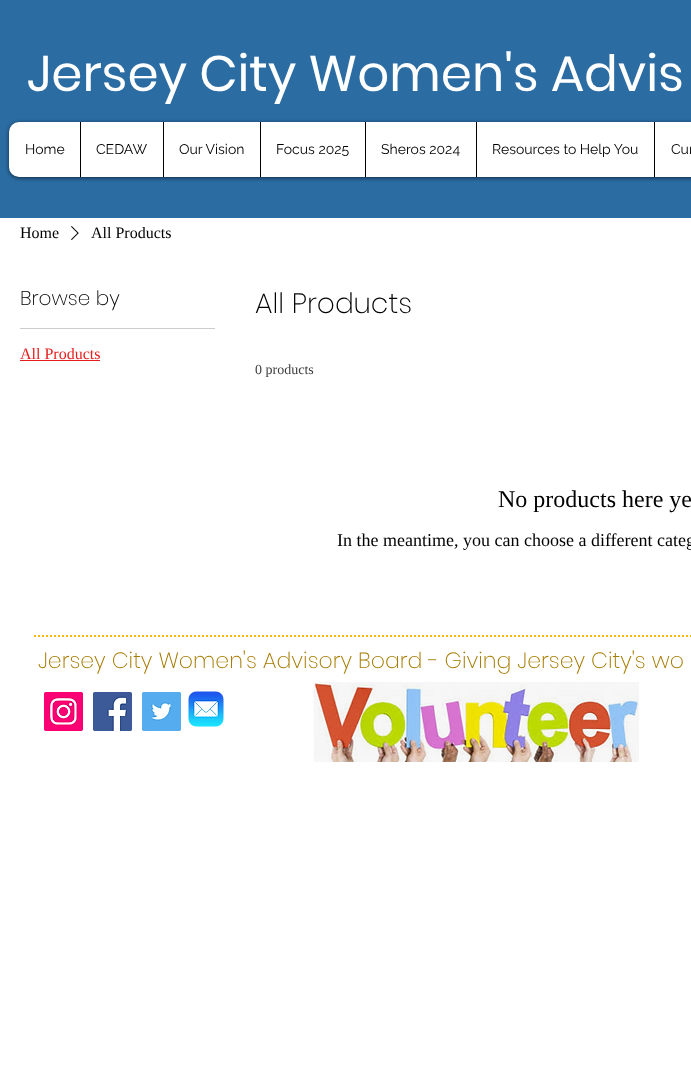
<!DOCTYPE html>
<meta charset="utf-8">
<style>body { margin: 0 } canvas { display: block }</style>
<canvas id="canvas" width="691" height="1086"></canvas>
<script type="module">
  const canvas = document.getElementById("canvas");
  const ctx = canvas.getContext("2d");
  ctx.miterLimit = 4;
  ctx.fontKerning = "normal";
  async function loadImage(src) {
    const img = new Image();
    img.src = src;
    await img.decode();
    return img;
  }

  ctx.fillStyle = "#ffffff";
  ctx.fillRect(0, 0, 691, 1086);
  ctx.fillStyle = "#2b6ca3";
  ctx.fillRect(0, 0, 691, 218);
  ctx.font = "50px Poppins";
  ctx.fillStyle = "#ffffff";
  ctx.fillText("Jersey City Women's Advis", 27, 91);
  ctx.fillStyle = "rgba(0, 0, 0, 0.6)";
  ctx.filter = "blur(2px)";
  ctx.beginPath();
  ctx.roundRect(9, 123, 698, 55, 10);
  ctx.fill();
  ctx.filter = "none";
  ctx.fillStyle = "#ffffff";
  ctx.beginPath();
  ctx.roundRect(9, 122, 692, 55, 10);
  ctx.fill();
  ctx.font = "14px Raleway";
  ctx.fillStyle = "#000000";
  ctx.fillText("Home", 25, 154);
  ctx.fillRect(80, 122, 1, 55);
  ctx.fillText("CEDAW", 96, 154);
  ctx.fillRect(163, 122, 1, 55);
  ctx.fillText("Our Vision", 179, 154);
  ctx.fillRect(260, 122, 1, 55);
  ctx.fillText("Focus 2025", 276, 154);
  ctx.fillRect(365, 122, 1, 55);
  ctx.fillText("Sheros 2024", 381, 154);
  ctx.fillRect(476, 122, 1, 55);
  ctx.fillText("Resources to Help You", 492, 154);
  ctx.fillRect(654, 122, 1, 55);
  ctx.fillText("Cur", 671, 154);
  ctx.font = "16px Liberation Serif";
  ctx.fillText("Home", 20, 238);
  ctx.drawImage(await loadImage("img1.png"), 71, 226, 8, 14);
  ctx.fillText("All Products", 91, 238);
  ctx.fillStyle = "#cccccc";
  ctx.fillRect(20, 328, 195, 1);
  ctx.font = "200 20px Poppins";
  ctx.fillStyle = "#000000";
  ctx.fillText("Browse by", 20, 305);
  ctx.font = "16px Liberation Serif";
  ctx.fillStyle = "#e71d1d";
  ctx.fillText("All Products", 20, 359);
  ctx.fillRect(20, 360, 80, 1);
  ctx.font = "200 28px Poppins";
  ctx.fillStyle = "#000000";
  ctx.fillText("All Products", 255, 313);
  ctx.font = "14px Liberation Serif";
  ctx.fillStyle = "#404040";
  ctx.fillText("0 products", 255, 374);
  ctx.font = "24px Liberation Serif";
  ctx.fillStyle = "#000000";
  ctx.fillText("No products here ye", 498, 507);
  ctx.font = "18px Liberation Serif";
  ctx.fillText("In the meantime, you can choose a different categ", 337, 546);
  ctx.beginPath();
  ctx.moveTo(34, 636);
  ctx.lineTo(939, 636);
  ctx.strokeStyle = "#fab700";
  ctx.lineWidth = 2;
  ctx.setLineDash([2, 2]);
  ctx.stroke();
  ctx.font = "200 22px Poppins";
  ctx.fillStyle = "#a77a00";
  ctx.fillText("Jersey City Women's Advisory Board - Giving Jersey City's wo", 38, 668);
  ctx.drawImage(await loadImage("img2.png"), 44, 692, 39, 39);
  ctx.drawImage(await loadImage("img3.png"), 93, 692, 39, 39);
  ctx.drawImage(await loadImage("img4.png"), 142, 692, 39, 39);
  ctx.drawImage(await loadImage("img5.png"), 188, 691, 36, 36);
  ctx.drawImage(await loadImage("img6.png"), 313, 682, 326, 80);
</script>
